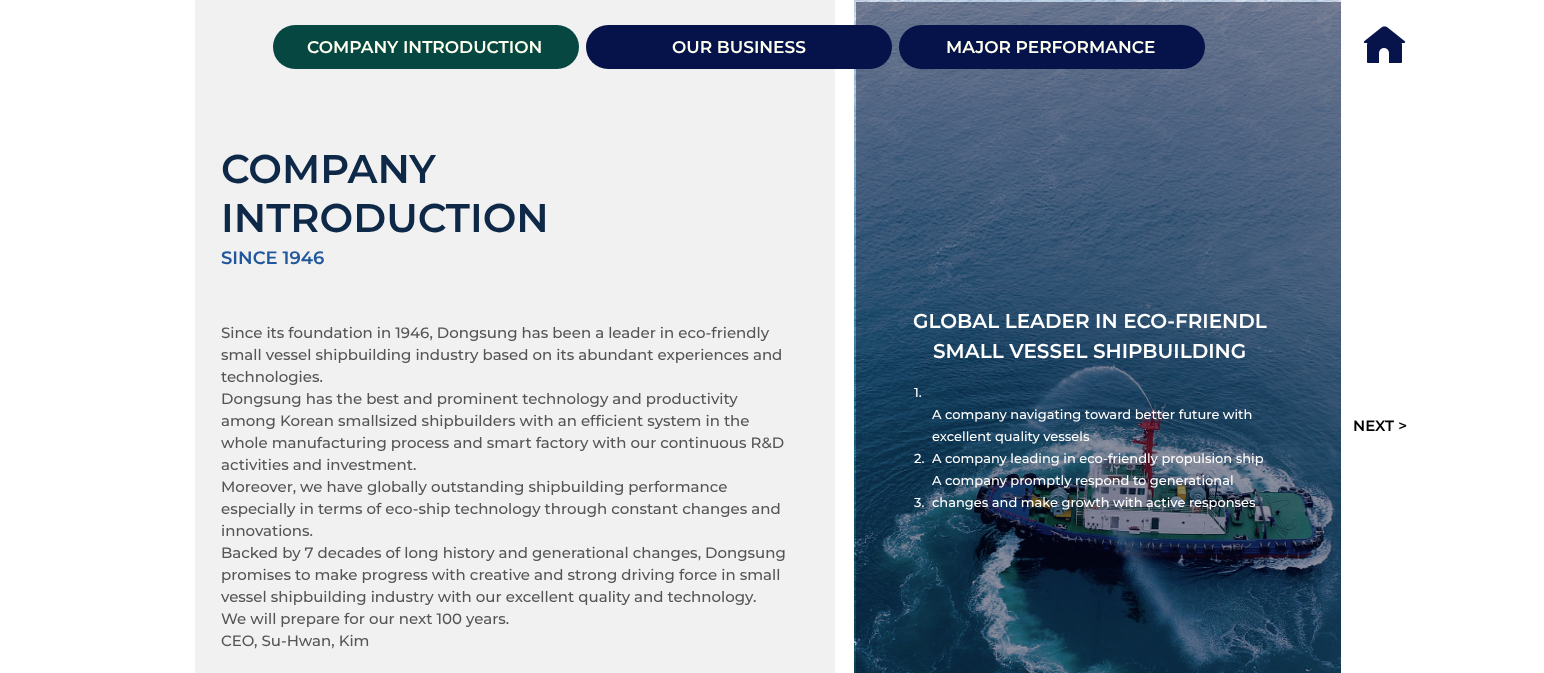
<!DOCTYPE html>
<meta charset="utf-8">
<style>body { margin: 0 } canvas { display: block }</style>
<canvas id="canvas" width="1544" height="673"></canvas>
<script type="module">
  const canvas = document.getElementById("canvas");
  const ctx = canvas.getContext("2d");
  ctx.miterLimit = 4;
  ctx.fontKerning = "normal";
  async function loadImage(src) {
    const img = new Image();
    img.src = src;
    await img.decode();
    return img;
  }

  ctx.fillStyle = "#ffffff";
  ctx.fillRect(0, 0, 1544, 673);
  ctx.fillStyle = "#f1f1f1";
  ctx.fillRect(195, 0, 640, 673);
  ctx.drawImage(await loadImage("img1.png"), 854, 0, 487, 673);
  ctx.drawImage(await loadImage("img2.png"), 1363, 26, 43, 17);
  ctx.fillStyle = "#06144b";
  ctx.beginPath();
  ctx.roundRect(1367, 43, 35, 20, 1);
  ctx.fill();
  ctx.fillStyle = "#ffffff";
  ctx.beginPath();
  ctx.arc(1384, 53, 5, 0, Math.PI * 2);
  ctx.fill();
  ctx.fillRect(1379, 53, 10, 10);
  ctx.fillStyle = "#064841";
  ctx.beginPath();
  ctx.roundRect(273, 25, 306, 44, 22);
  ctx.fill();
  ctx.font = "600 17px Montserrat";
  ctx.fillStyle = "#fffff0";
  ctx.fillText("COMPANY INTRODUCTION", 307, 53);
  ctx.fillStyle = "#05134a";
  ctx.beginPath();
  ctx.roundRect(586, 25, 306, 44, 22);
  ctx.fill();
  ctx.fillStyle = "#fffff0";
  ctx.fillText("OUR BUSINESS", 672, 53);
  ctx.fillStyle = "#05134a";
  ctx.beginPath();
  ctx.roundRect(899, 25, 306, 44, 22);
  ctx.fill();
  ctx.fillStyle = "#fffff0";
  ctx.fillText("MAJOR PERFORMANCE", 946, 53);
  ctx.font = "600 40px Montserrat";
  ctx.fillStyle = "#0e2848";
  ctx.fillText("COMPANY", 221, 183);
  ctx.fillText("INTRODUCTION", 221, 232);
  ctx.font = "600 18px Montserrat";
  ctx.fillStyle = "#21589c";
  ctx.fillText("SINCE 1946", 221, 264);
  ctx.font = "500 15px Montserrat";
  ctx.fillStyle = "#555555";
  ctx.fillText("Since its foundation in 1946, Dongsung has been a leader in eco-friendly", 221, 338);
  ctx.fillText("small vessel shipbuilding industry based on its abundant experiences and", 221, 360);
  ctx.fillText("technologies.", 221, 382);
  ctx.fillText("Dongsung has the best and prominent technology and productivity", 221, 404);
  ctx.fillText("among Korean smallsized shipbuilders with an efficient system in the", 221, 426);
  ctx.fillText("whole manufacturing process and smart factory with our continuous R&D", 221, 448);
  ctx.fillText("activities and investment.", 221, 470);
  ctx.fillText("Moreover, we have globally outstanding shipbuilding performance", 221, 492);
  ctx.fillText("especially in terms of eco-ship technology through constant changes and", 221, 514);
  ctx.fillText("innovations.", 221, 536);
  ctx.fillText("Backed by 7 decades of long history and generational changes, Dongsung", 221, 558);
  ctx.fillText("promises to make progress with creative and strong driving force in small", 221, 580);
  ctx.fillText("vessel shipbuilding industry with our excellent quality and technology.", 221, 602);
  ctx.fillText("We will prepare for our next 100 years.", 221, 624);
  ctx.fillText("CEO, Su-Hwan, Kim", 221, 646);
  ctx.font = "600 20px Montserrat";
  ctx.fillStyle = "#ffffff";
  ctx.fillText("GLOBAL LEADER IN ECO-FRIENDL", 913, 328);
  ctx.fillText("SMALL VESSEL SHIPBUILDING", 933, 358);
  ctx.font = "500 13px Montserrat";
  ctx.fillText("1.", 914, 397);
  ctx.fillText("2.", 914, 463);
  ctx.fillText("3.", 914, 507);
  ctx.fillText("A company navigating toward better future with", 932, 419);
  ctx.fillText("excellent quality vessels", 932, 441);
  ctx.fillText("A company leading in eco-friendly propulsion ship", 932, 463);
  ctx.fillText("A company promptly respond to generational", 932, 485);
  ctx.fillText("changes and make growth with active responses", 932, 507);
  ctx.font = "600 15px Montserrat";
  ctx.fillStyle = "#000000";
  ctx.fillText("NEXT >", 1353, 431);
</script>
